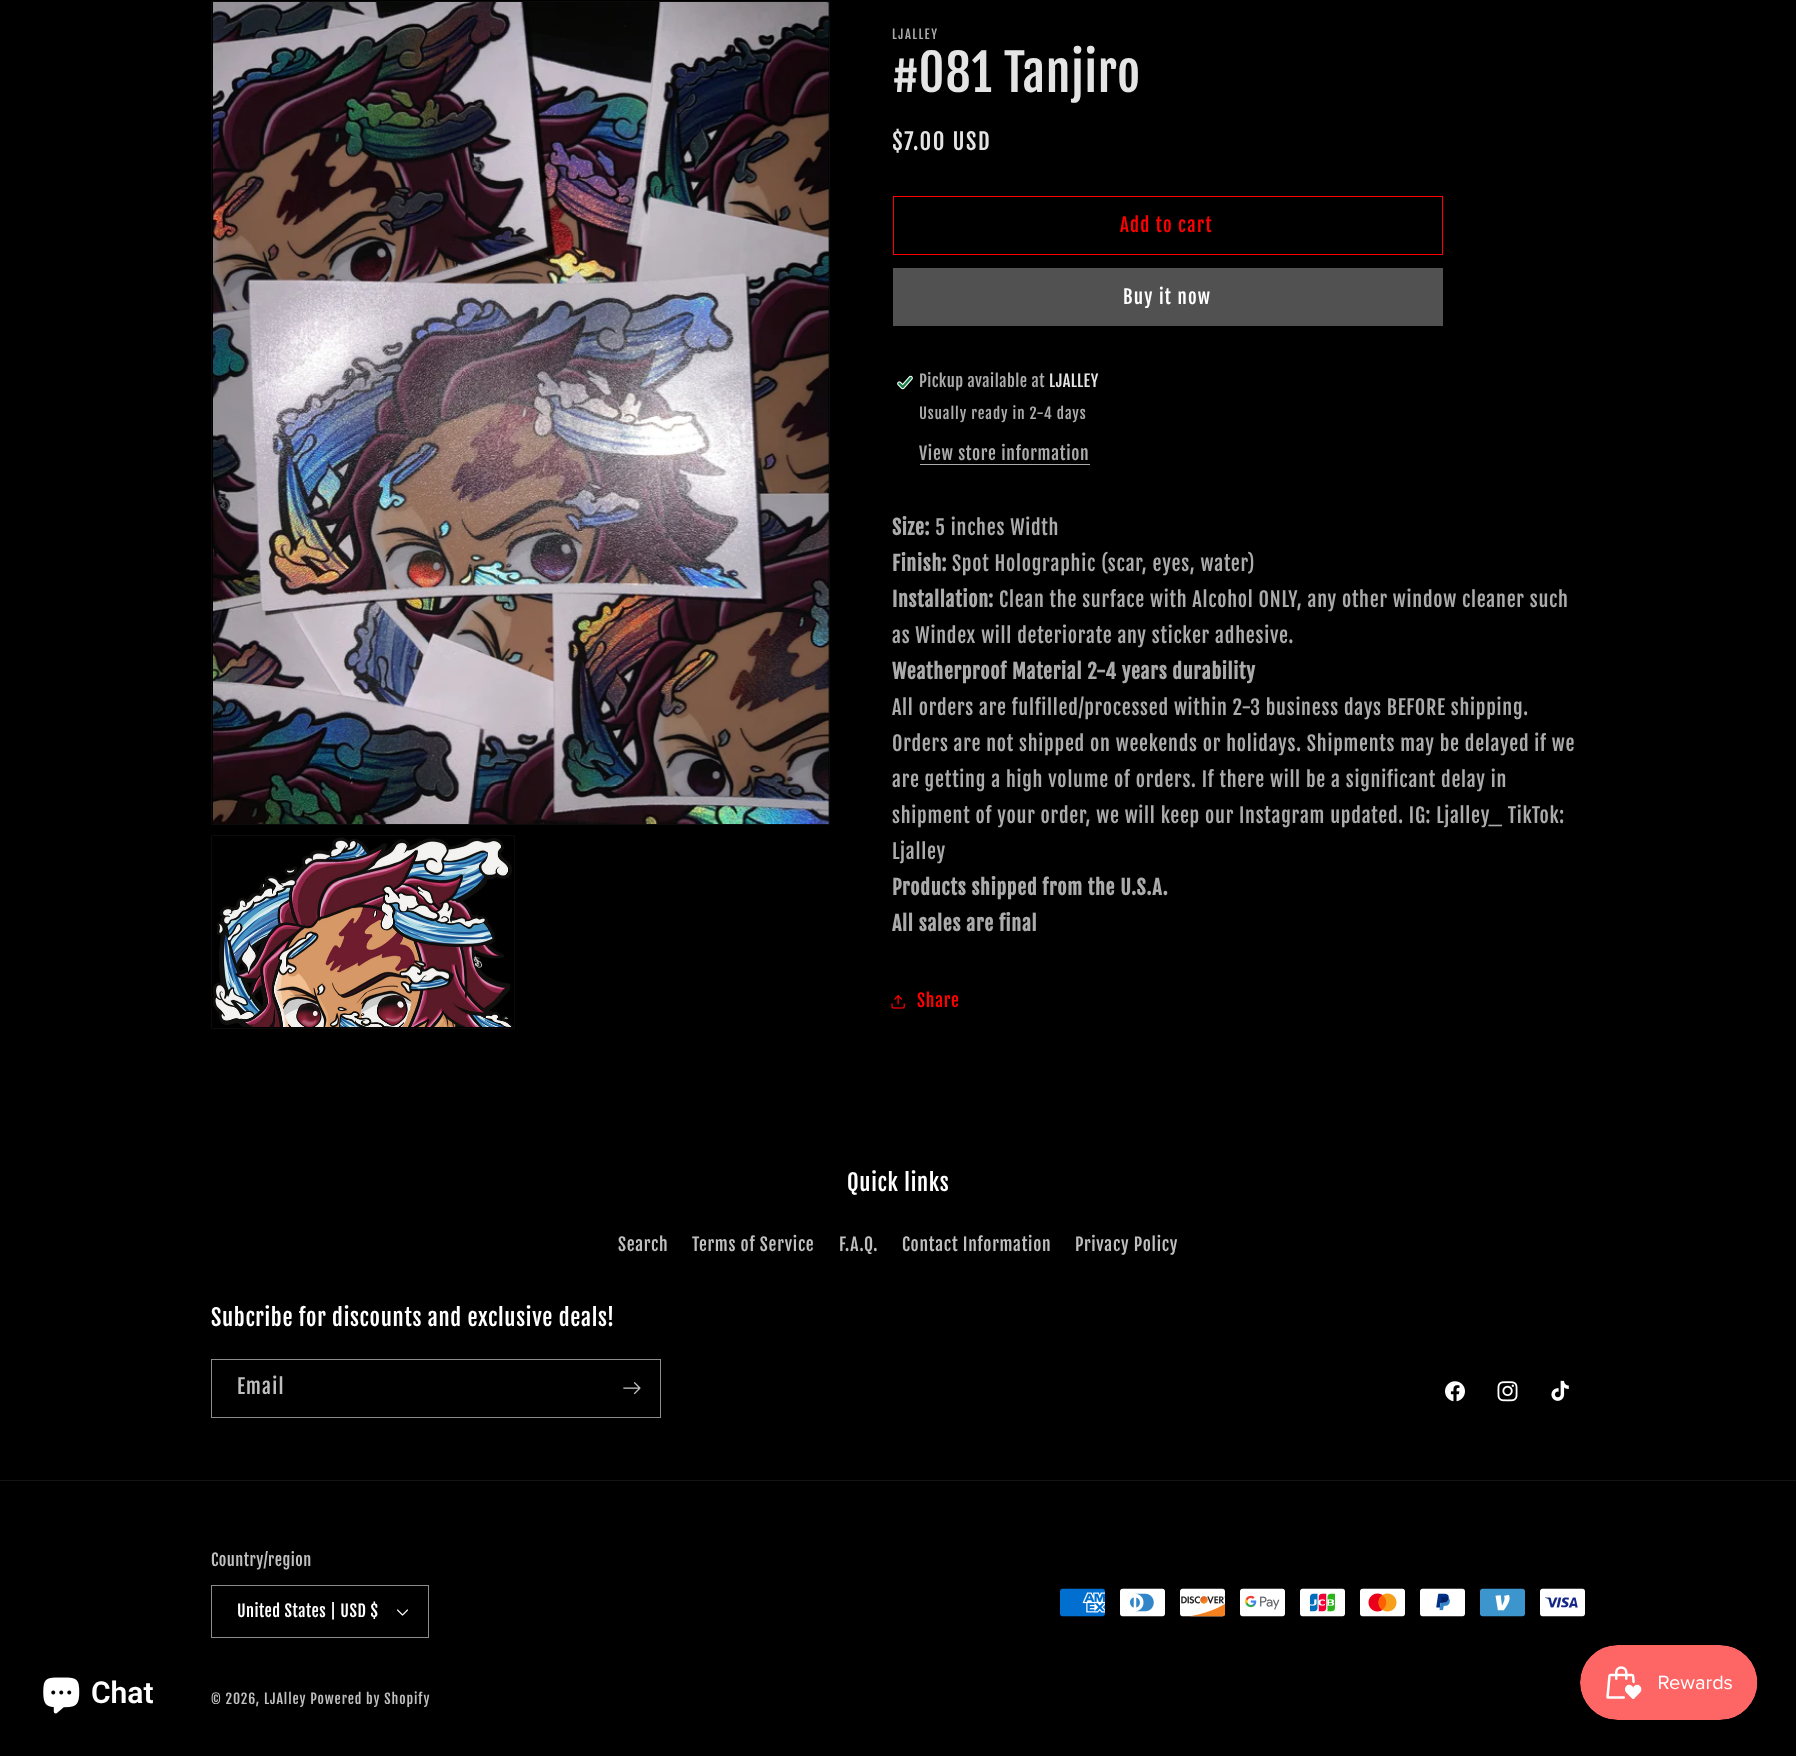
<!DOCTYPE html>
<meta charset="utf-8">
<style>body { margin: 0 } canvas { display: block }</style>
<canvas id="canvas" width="1796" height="1756"></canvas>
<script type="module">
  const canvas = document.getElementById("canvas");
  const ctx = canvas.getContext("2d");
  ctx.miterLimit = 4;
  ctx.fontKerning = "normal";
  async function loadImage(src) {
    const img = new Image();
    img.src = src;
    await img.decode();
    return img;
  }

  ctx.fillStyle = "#000000";
  ctx.fillRect(0, 0, 1796, 1756);
  ctx.strokeStyle = "#0b0b0b";
  ctx.strokeRect(211.5, 1.5, 618, 823);
  ctx.drawImage(await loadImage("img1.png"), 213, 2, 616, 822);
  ctx.strokeRect(211.5, 835.5, 303, 193);
  ctx.drawImage(await loadImage("img2.png"), 213, 837, 300, 190);
  ctx.letterSpacing = "1.6px";
  ctx.font = "12.5px Fjalla One";
  ctx.fillStyle = "#ababab";
  ctx.fillText("LJALLEY", 892, 39);
  ctx.letterSpacing = "0.75px";
  ctx.font = "50px Fjalla One";
  ctx.fillStyle = "#e4e4e4";
  ctx.fillText("#081 Tanjiro", 892, 92);
  ctx.letterSpacing = "1.6px";
  ctx.font = "22.5px Fjalla One";
  ctx.fillText("$7.00 USD", 892, 150);
  ctx.strokeStyle = "#ff0000";
  ctx.strokeRect(893.5, 196.5, 549, 58);
  ctx.letterSpacing = "1.25px";
  ctx.font = "18.75px Fjalla One";
  ctx.fillStyle = "#ff0000";
  ctx.fillText("Add to cart", 1120, 232);
  ctx.fillStyle = "#515151";
  ctx.fillRect(893, 268, 550, 58);
  ctx.fillStyle = "#ffffff";
  ctx.fillText("Buy it now", 1123, 304);
  ctx.drawImage(await loadImage("img3.png"), 897, 375, 16, 15);
  ctx.letterSpacing = "0.5px";
  ctx.font = "16.25px Fjalla One";
  ctx.fillStyle = "#ababab";
  ctx.fillText("Pickup available at", 919, 387);
  ctx.fillStyle = "#e4e4e4";
  ctx.fillText("LJALLEY", 1049, 387);
  ctx.letterSpacing = "0.9px";
  ctx.font = "15px Fjalla One";
  ctx.fillStyle = "#ababab";
  ctx.fillText("Usually ready in 2-4 days", 919, 419);
  ctx.letterSpacing = "0.75px";
  ctx.font = "17.5px Fjalla One";
  ctx.fillText("View store information", 919, 460);
  ctx.fillRect(920, 464, 170, 1);
  ctx.font = "bold 20px Fjalla One";
  ctx.fillText("Size:", 892, 535);
  ctx.font = "20px Fjalla One";
  ctx.fillText("5 inches Width", 935, 535);
  ctx.font = "bold 20px Fjalla One";
  ctx.fillText("Finish:", 892, 571);
  ctx.font = "20px Fjalla One";
  ctx.fillText("Spot Holographic (scar, eyes, water)", 952, 571);
  ctx.font = "bold 20px Fjalla One";
  ctx.fillText("Installation:", 892, 607);
  ctx.font = "20px Fjalla One";
  ctx.fillText("Clean the surface with Alcohol ONLY, any other window cleaner such", 999, 607);
  ctx.fillText("as Windex will deteriorate any sticker adhesive.", 892, 643);
  ctx.font = "bold 20px Fjalla One";
  ctx.fillText("Weatherproof Material 2-4 years durability", 892, 679);
  ctx.font = "20px Fjalla One";
  ctx.fillText("All orders are fulfilled/processed within 2-3 business days BEFORE shipping.", 892, 715);
  ctx.fillText("Orders are not shipped on weekends or holidays. Shipments may be delayed if we", 892, 751);
  ctx.fillText("are getting a high volume of orders. If there will be a significant delay in", 892, 787);
  ctx.fillText("shipment of your order, we will keep our Instagram updated. IG: Ljalley_ TikTok:", 892, 823);
  ctx.fillText("Ljalley", 892, 859);
  ctx.font = "bold 20px Fjalla One";
  ctx.fillText("Products shipped from the U.S.A.", 892, 895);
  ctx.fillText("All sales are final", 892, 931);
  ctx.drawImage(await loadImage("img4.png"), 891, 995, 14, 14);
  ctx.font = "17.5px Fjalla One";
  ctx.fillStyle = "#ff0000";
  ctx.fillText("Share", 917, 1007);
  ctx.drawImage(await loadImage("img5.png"), 43, 1677, 37, 37);
  ctx.letterSpacing = "0px";
  ctx.font = "600 30px Roboto";
  ctx.fillStyle = "#ffffff";
  ctx.fillText("Chat", 91, 1703);
  ctx.letterSpacing = "0.75px";
  ctx.font = "22.5px Fjalla One";
  ctx.fillText("Quick links", 847, 1191);
  ctx.font = "17.5px Fjalla One";
  ctx.fillStyle = "#bfbfbf";
  ctx.fillText("Search", 618, 1251);
  ctx.fillText("Terms of Service", 692, 1251);
  ctx.fillText("F.A.Q.", 839, 1251);
  ctx.fillText("Contact Information", 902, 1251);
  ctx.fillText("Privacy Policy", 1075, 1251);
  ctx.font = "22.5px Fjalla One";
  ctx.fillStyle = "#ffffff";
  ctx.fillText("Subcribe for discounts and exclusive deals!", 211, 1326);
  ctx.strokeStyle = "#8c8c8c";
  ctx.strokeRect(211.5, 1359.5, 449, 58);
  ctx.letterSpacing = "1.25px";
  ctx.font = "20px Fjalla One";
  ctx.fillStyle = "#bfbfbf";
  ctx.fillText("Email", 237, 1394);
  ctx.drawImage(await loadImage("img6.png"), 623, 1382, 18, 13);
  ctx.drawImage(await loadImage("img7.png"), 1445, 1381, 20, 21);
  ctx.drawImage(await loadImage("img8.png"), 1497, 1381, 21, 21);
  ctx.drawImage(await loadImage("img9.png"), 1551, 1380, 18, 21);
  ctx.fillStyle = "#141414";
  ctx.fillRect(0, 1480, 1796, 1);
  ctx.letterSpacing = "0.5px";
  ctx.font = "16.25px Fjalla One";
  ctx.fillStyle = "#bfbfbf";
  ctx.fillText("Country/region", 211, 1566);
  ctx.drawImage(await loadImage("img10.png"), 397, 1609, 11, 7);
  ctx.strokeRect(211.5, 1585.5, 217, 52);
  ctx.fillStyle = "#ffffff";
  ctx.fillText("United States | USD $", 237, 1617);
  ctx.drawImage(await loadImage("img11.png"), 1060, 1588, 45, 29);
  ctx.drawImage(await loadImage("img12.png"), 1120, 1588, 45, 29);
  ctx.drawImage(await loadImage("img13.png"), 1180, 1588, 46, 29);
  ctx.drawImage(await loadImage("img14.png"), 1240, 1588, 45, 29);
  ctx.drawImage(await loadImage("img15.png"), 1300, 1588, 45, 29);
  ctx.drawImage(await loadImage("img16.png"), 1360, 1588, 45, 29);
  ctx.drawImage(await loadImage("img17.png"), 1420, 1588, 45, 29);
  ctx.drawImage(await loadImage("img18.png"), 1480, 1588, 45, 29);
  ctx.drawImage(await loadImage("img19.png"), 1540, 1588, 45, 29);
  ctx.letterSpacing = "0.9px";
  ctx.font = "13.75px Fjalla One";
  ctx.fillStyle = "#bfbfbf";
  ctx.fillText("© 2026, LJAlley Powered by Shopify", 211, 1704);
  ctx.drawImage(await loadImage("img20.png"), 1580, 1645, 178, 75);
</script>
